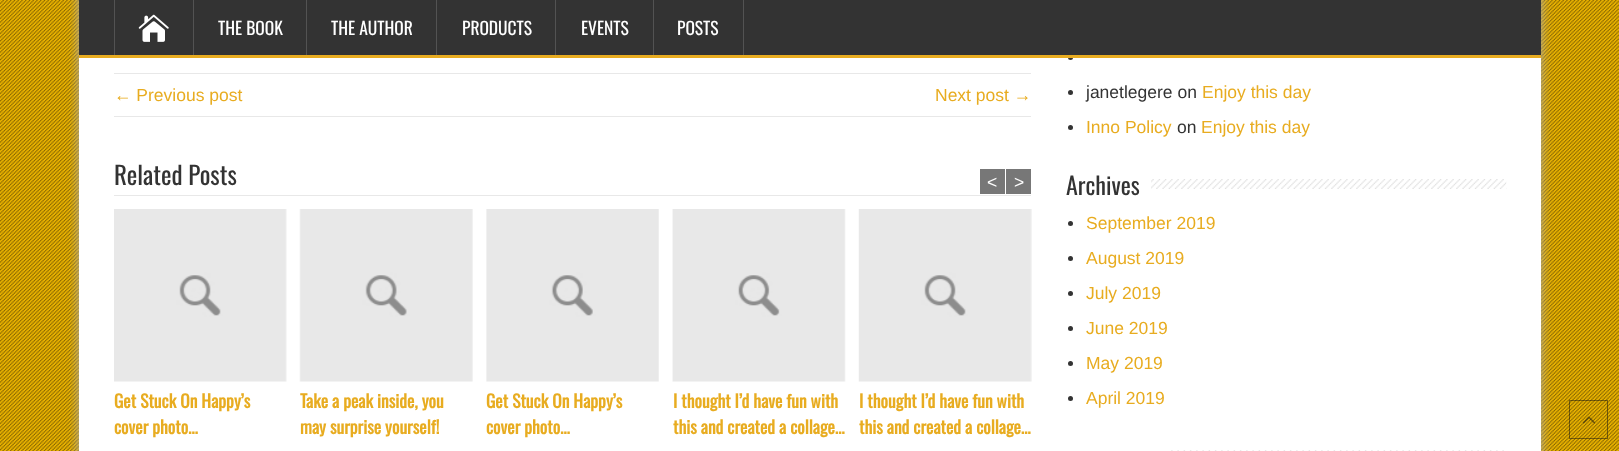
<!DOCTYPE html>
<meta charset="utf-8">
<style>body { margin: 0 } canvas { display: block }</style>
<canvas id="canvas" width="1619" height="451"></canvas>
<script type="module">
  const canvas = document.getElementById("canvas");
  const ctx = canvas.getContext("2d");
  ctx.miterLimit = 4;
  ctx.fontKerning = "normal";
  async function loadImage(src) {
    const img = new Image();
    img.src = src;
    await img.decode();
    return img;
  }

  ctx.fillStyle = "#edb500";
  ctx.fillRect(0, 0, 1619, 451);
  ctx.drawImage(await loadImage("img1.png"), 0, 0, 1619, 451);
  ctx.fillStyle = "#aaaaaa";
  ctx.filter = "blur(6px)";
  ctx.beginPath();
  ctx.rect(79, -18, 1462, 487);
  ctx.fill();
  ctx.filter = "none";
  ctx.fillStyle = "#ffffff";
  ctx.fillRect(79, 58, 1462, 393);
  ctx.fillStyle = "#333333";
  ctx.fillRect(79, 0, 1462, 55);
  ctx.beginPath();
  ctx.arc(1070.5, 57.5, 2.5, 0, Math.PI * 2);
  ctx.fill();
  ctx.fillStyle = "#e8ac20";
  ctx.fillRect(79, 55, 1462, 3);
  ctx.fillStyle = "#535353";
  ctx.fillRect(193, 0, 1, 55);
  ctx.fillRect(114, 0, 1, 55);
  ctx.drawImage(await loadImage("img2.png"), 138, 14, 31, 28);
  ctx.fillRect(306, 0, 1, 55);
  ctx.font = "17.5px Oswald";
  ctx.fillStyle = "#ffffff";
  ctx.fillText("THE BOOK", 218, 35);
  ctx.fillStyle = "#535353";
  ctx.fillRect(436, 0, 1, 55);
  ctx.fillStyle = "#ffffff";
  ctx.fillText("THE AUTHOR", 331, 35);
  ctx.fillStyle = "#535353";
  ctx.fillRect(555, 0, 1, 55);
  ctx.fillStyle = "#ffffff";
  ctx.fillText("PRODUCTS", 462, 35);
  ctx.fillStyle = "#535353";
  ctx.fillRect(653, 0, 1, 55);
  ctx.fillStyle = "#ffffff";
  ctx.fillText("EVENTS", 581, 35);
  ctx.fillStyle = "#535353";
  ctx.fillRect(743, 0, 1, 55);
  ctx.fillStyle = "#ffffff";
  ctx.fillText("POSTS", 677, 35);
  ctx.fillStyle = "#e8e8e8";
  ctx.fillRect(114, 73, 917, 1);
  ctx.fillRect(114, 116, 917, 1);
  ctx.font = "17.5px Liberation Sans";
  ctx.fillStyle = "#e8ac20";
  ctx.fillText("← Previous post", 114, 101);
  ctx.fillText("Next post →", 935, 101);
  ctx.fillStyle = "#e8e8e8";
  ctx.fillRect(114, 195, 917, 1);
  ctx.font = "25px Oswald";
  ctx.fillStyle = "#333333";
  ctx.fillText("Related Posts", 114, 185);
  ctx.fillStyle = "#777777";
  ctx.fillRect(980, 169, 25, 25);
  ctx.font = "17.5px Liberation Sans";
  ctx.fillStyle = "#ffffff";
  ctx.fillText("<", 987, 188);
  ctx.fillStyle = "#777777";
  ctx.fillRect(1006, 169, 25, 25);
  ctx.fillStyle = "#ffffff";
  ctx.fillText(">", 1014, 188);
  ctx.drawImage(await loadImage("img3.png"), 114, 209, 173, 173);
  ctx.font = "bold 17.5px Oswald";
  ctx.fillStyle = "#e8ac20";
  ctx.fillText("Get Stuck On Happy’s", 114, 408);
  ctx.fillText("cover photo…", 114, 434);
  ctx.drawImage(await loadImage("img4.png"), 299, 209, 174, 173);
  ctx.fillText("Take a peak inside, you", 300, 408);
  ctx.fillText("may surprise yourself!", 300, 434);
  ctx.drawImage(await loadImage("img5.png"), 486, 209, 173, 173);
  ctx.fillText("Get Stuck On Happy’s", 486, 408);
  ctx.fillText("cover photo…", 486, 434);
  ctx.drawImage(await loadImage("img6.png"), 672, 209, 174, 173);
  ctx.fillText("I thought I’d have fun with", 673, 408);
  ctx.fillText("this and created a collage…", 673, 434);
  ctx.drawImage(await loadImage("img7.png"), 858, 209, 174, 173);
  ctx.fillText("I thought I’d have fun with", 859, 408);
  ctx.fillText("this and created a collage…", 859, 434);
  ctx.fillStyle = "#333333";
  ctx.beginPath();
  ctx.arc(1070.5, 92.5, 2.5, 0, Math.PI * 2);
  ctx.fill();
  ctx.font = "17.5px Liberation Sans";
  ctx.fillText("janetlegere on", 1086, 98);
  ctx.fillStyle = "#e8ac20";
  ctx.fillText("Enjoy this day", 1202, 98);
  ctx.fillStyle = "#333333";
  ctx.beginPath();
  ctx.arc(1070.5, 127.5, 2.5, 0, Math.PI * 2);
  ctx.fill();
  ctx.fillStyle = "#e8ac20";
  ctx.fillText("Inno Policy", 1086, 133);
  ctx.fillStyle = "#333333";
  ctx.fillText("on", 1177, 133);
  ctx.fillStyle = "#e8ac20";
  ctx.fillText("Enjoy this day", 1201, 133);
  ctx.drawImage(await loadImage("img8.png"), 1151, 179, 356, 10);
  ctx.font = "24px Oswald";
  ctx.fillStyle = "#333333";
  ctx.fillText("Archives", 1066, 195);
  ctx.beginPath();
  ctx.arc(1070.5, 223.5, 2.5, 0, Math.PI * 2);
  ctx.fill();
  ctx.font = "17.5px Liberation Sans";
  ctx.fillStyle = "#e8ac20";
  ctx.fillText("September 2019", 1086, 229);
  ctx.fillStyle = "#333333";
  ctx.beginPath();
  ctx.arc(1070.5, 258.5, 2.5, 0, Math.PI * 2);
  ctx.fill();
  ctx.fillStyle = "#e8ac20";
  ctx.fillText("August 2019", 1086, 264);
  ctx.fillStyle = "#333333";
  ctx.beginPath();
  ctx.arc(1070.5, 293.5, 2.5, 0, Math.PI * 2);
  ctx.fill();
  ctx.fillStyle = "#e8ac20";
  ctx.fillText("July 2019", 1086, 299);
  ctx.fillStyle = "#333333";
  ctx.beginPath();
  ctx.arc(1070.5, 328.5, 2.5, 0, Math.PI * 2);
  ctx.fill();
  ctx.fillStyle = "#e8ac20";
  ctx.fillText("June 2019", 1086, 334);
  ctx.fillStyle = "#333333";
  ctx.beginPath();
  ctx.arc(1070.5, 363.5, 2.5, 0, Math.PI * 2);
  ctx.fill();
  ctx.fillStyle = "#e8ac20";
  ctx.fillText("May 2019", 1086, 369);
  ctx.fillStyle = "#333333";
  ctx.beginPath();
  ctx.arc(1070.5, 398.5, 2.5, 0, Math.PI * 2);
  ctx.fill();
  ctx.fillStyle = "#e8ac20";
  ctx.fillText("April 2019", 1086, 404);
  ctx.drawImage(await loadImage("img9.png"), 1171, 450, 333, 1);
  ctx.strokeStyle = "rgba(17, 17, 17, 0.5)";
  ctx.strokeRect(1569.5, 400.5, 38, 38);
  ctx.drawImage(await loadImage("img10.png"), 1582, 416, 13, 8);
</script>
